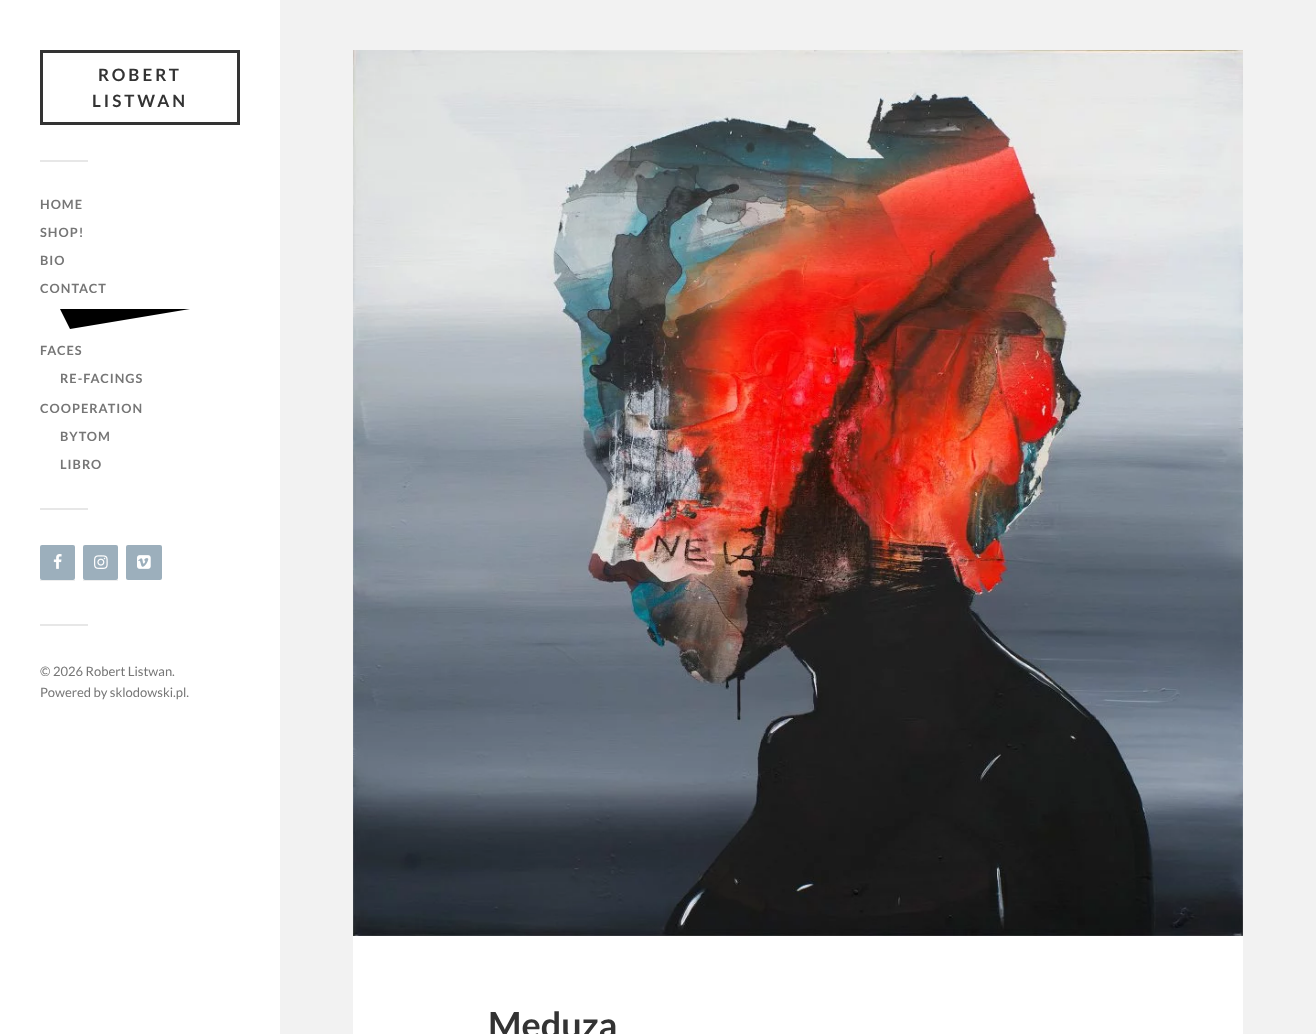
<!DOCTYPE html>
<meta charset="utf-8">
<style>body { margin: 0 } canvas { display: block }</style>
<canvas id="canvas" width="1316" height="1034"></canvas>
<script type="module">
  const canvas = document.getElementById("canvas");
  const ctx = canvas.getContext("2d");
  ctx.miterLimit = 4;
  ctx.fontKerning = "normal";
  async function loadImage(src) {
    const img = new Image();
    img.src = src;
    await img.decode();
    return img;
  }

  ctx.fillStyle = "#f2f2f2";
  ctx.fillRect(0, 0, 1316, 1034);
  ctx.fillStyle = "#ffffff";
  ctx.fillRect(0, 0, 280, 1034);
  ctx.strokeStyle = "#333333";
  ctx.lineWidth = 3;
  ctx.strokeRect(41.5, 51.5, 197, 72);
  ctx.letterSpacing = "3px";
  ctx.font = "bold 17px Lato";
  ctx.fillStyle = "#333333";
  ctx.fillText("ROBERT", 98, 81);
  ctx.fillText("LISTWAN", 92, 107);
  ctx.fillStyle = "#e7e7e7";
  ctx.fillRect(40, 160, 48, 2);
  ctx.letterSpacing = "1px";
  ctx.font = "bold 12.75px Lato";
  ctx.fillStyle = "#767676";
  ctx.fillText("HOME", 40, 209);
  ctx.fillText("SHOP!", 40, 237);
  ctx.fillText("BIO", 40, 265);
  ctx.fillText("CONTACT", 40, 293);
  ctx.fillStyle = "#000000";
  ctx.beginPath();
  ctx.moveTo(60, 309);
  ctx.lineTo(190, 309);
  ctx.lineTo(70, 329);
  ctx.closePath();
  ctx.fill();
  ctx.fillStyle = "#767676";
  ctx.fillText("FACES", 40, 355);
  ctx.fillText("RE-FACINGS", 60, 383);
  ctx.fillText("COOPERATION", 40, 413);
  ctx.fillText("BYTOM", 60, 441);
  ctx.fillText("LIBRO", 60, 469);
  ctx.fillStyle = "#e7e7e7";
  ctx.fillRect(40, 508, 48, 2);
  ctx.fillStyle = "#eeeeee";
  ctx.fillRect(40, 580, 35, 1);
  ctx.fillStyle = "#9cafbc";
  ctx.beginPath();
  ctx.roundRect(40, 545, 35, 35, 2);
  ctx.fill();
  ctx.drawImage(await loadImage("img1.png"), 53, 554, 9, 15);
  ctx.fillStyle = "#eeeeee";
  ctx.fillRect(83, 580, 35, 1);
  ctx.fillStyle = "#9cafbc";
  ctx.beginPath();
  ctx.roundRect(83, 545, 35, 35, 2);
  ctx.fill();
  ctx.drawImage(await loadImage("img2.png"), 94, 555, 14, 14);
  ctx.beginPath();
  ctx.roundRect(126, 545, 36, 35, 2);
  ctx.fill();
  ctx.drawImage(await loadImage("img3.png"), 137, 555, 14, 14);
  ctx.fillStyle = "#e7e7e7";
  ctx.fillRect(40, 624, 48, 2);
  ctx.letterSpacing = "0px";
  ctx.font = "13px Lato";
  ctx.fillStyle = "#767676";
  ctx.fillText("© 2026 Robert Listwan.", 40, 676);
  ctx.fillText("Powered by sklodowski.pl.", 40, 697);
  ctx.fillStyle = "#ffffff";
  ctx.fillRect(353, 936, 890, 98);
  ctx.drawImage(await loadImage("img4.png"), 353, 50, 890, 886);
  ctx.font = "bold 36px Lato";
  ctx.fillStyle = "#333333";
  ctx.fillText("Meduza", 488, 1038);
</script>
